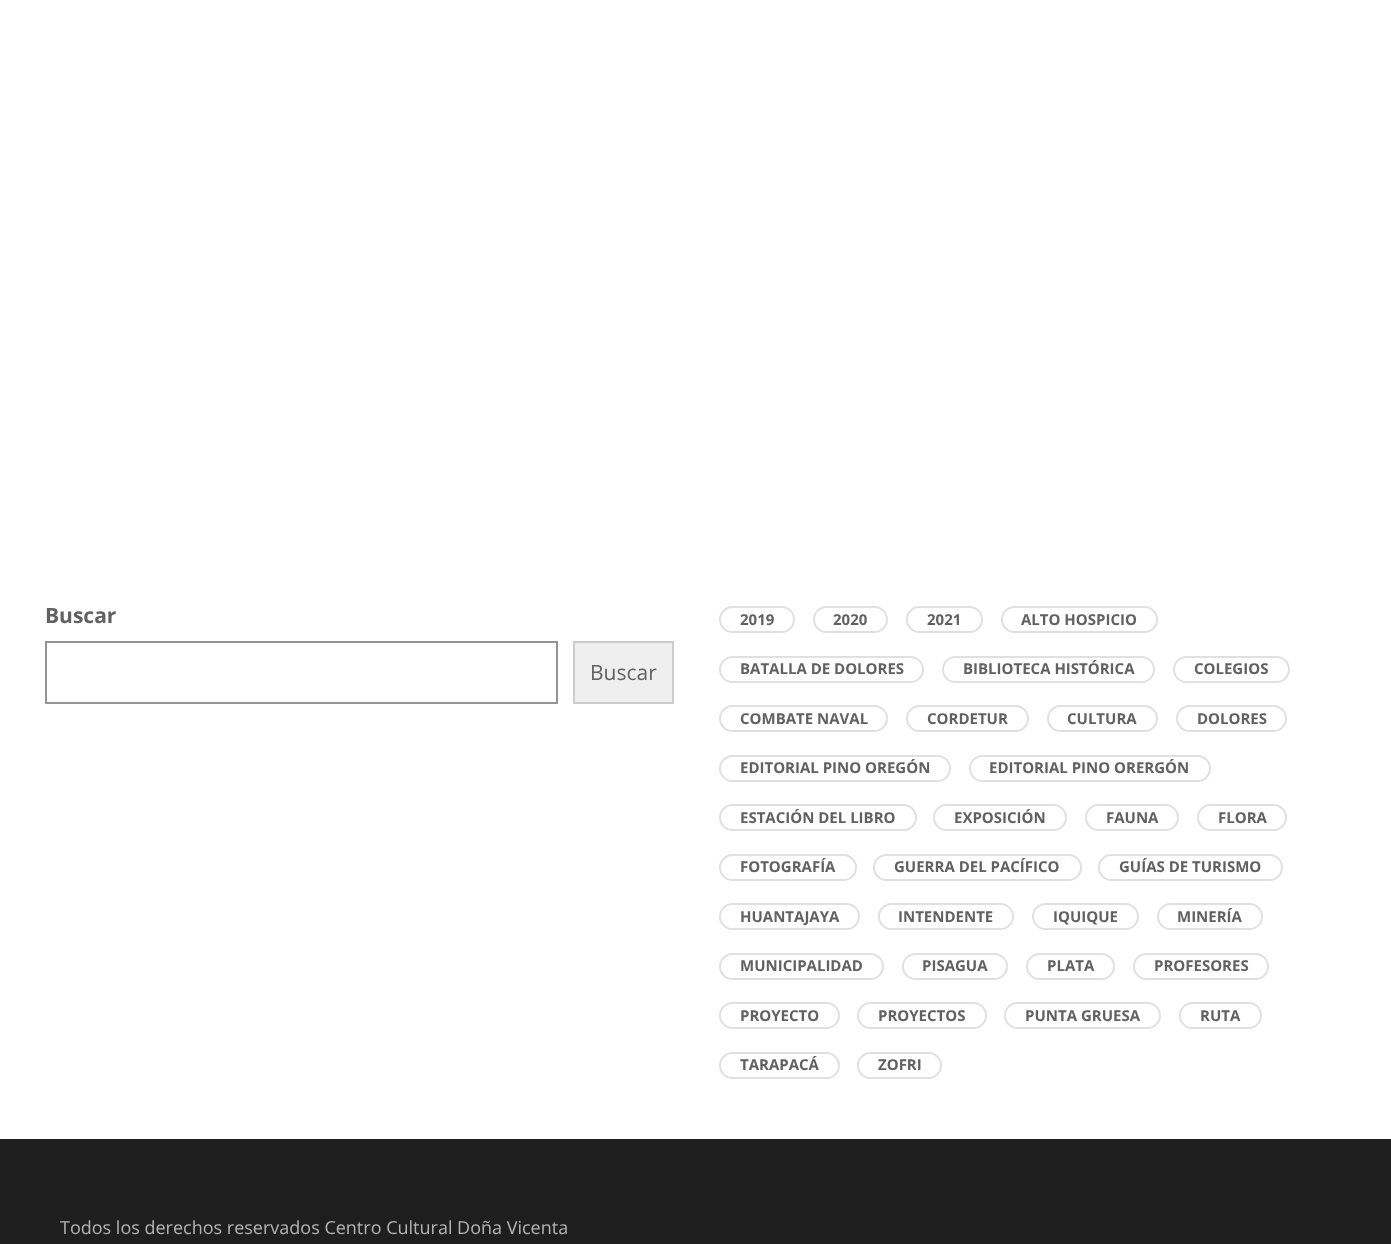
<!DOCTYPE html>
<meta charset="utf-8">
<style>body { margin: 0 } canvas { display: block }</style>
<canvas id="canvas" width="1391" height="1244"></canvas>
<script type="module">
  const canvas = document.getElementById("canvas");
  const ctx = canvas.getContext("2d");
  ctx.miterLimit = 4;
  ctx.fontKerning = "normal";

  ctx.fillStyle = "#ffffff";
  ctx.fillRect(0, 0, 1391, 1244);
  ctx.font = "bold 21px Open Sans";
  ctx.fillStyle = "#616161";
  ctx.fillText("Buscar", 45, 623);
  ctx.strokeStyle = "#949494";
  ctx.lineWidth = 2;
  ctx.strokeRect(46, 642, 511, 61);
  ctx.fillStyle = "#efefef";
  ctx.beginPath();
  ctx.rect(574, 642, 99, 61);
  ctx.fill();
  ctx.strokeStyle = "#cccccc";
  ctx.stroke();
  ctx.font = "21px Open Sans";
  ctx.fillStyle = "#616161";
  ctx.fillText("Buscar", 590, 680);
  ctx.beginPath();
  ctx.roundRect(720, 607, 74, 25, 12.5);
  ctx.strokeStyle = "#e0e0e0";
  ctx.stroke();
  ctx.font = "bold 15px Open Sans";
  ctx.fillText("2019", 740, 625);
  ctx.beginPath();
  ctx.roundRect(814, 607, 73, 25, 12.5);
  ctx.stroke();
  ctx.fillText("2020", 833, 625);
  ctx.beginPath();
  ctx.roundRect(907, 607, 75, 25, 12.5);
  ctx.stroke();
  ctx.fillText("2021", 927, 625);
  ctx.beginPath();
  ctx.roundRect(1002, 607, 155, 25, 12.5);
  ctx.stroke();
  ctx.fillText("ALTO HOSPICIO", 1021, 625);
  ctx.beginPath();
  ctx.roundRect(720, 657, 203, 25, 12.5);
  ctx.stroke();
  ctx.fillText("BATALLA DE DOLORES", 740, 674);
  ctx.beginPath();
  ctx.roundRect(943, 657, 211, 25, 12.5);
  ctx.stroke();
  ctx.fillText("BIBLIOTECA HISTÓRICA", 963, 674);
  ctx.beginPath();
  ctx.roundRect(1174, 657, 115, 25, 12.5);
  ctx.stroke();
  ctx.fillText("COLEGIOS", 1194, 674);
  ctx.beginPath();
  ctx.roundRect(720, 706, 167, 25, 12.5);
  ctx.stroke();
  ctx.fillText("COMBATE NAVAL", 740, 724);
  ctx.beginPath();
  ctx.roundRect(907, 706, 121, 25, 12.5);
  ctx.stroke();
  ctx.fillText("CORDETUR", 927, 724);
  ctx.beginPath();
  ctx.roundRect(1048, 706, 109, 25, 12.5);
  ctx.stroke();
  ctx.fillText("CULTURA", 1067, 724);
  ctx.beginPath();
  ctx.roundRect(1177, 706, 109, 25, 12.5);
  ctx.stroke();
  ctx.fillText("DOLORES", 1197, 724);
  ctx.beginPath();
  ctx.roundRect(720, 756, 230, 25, 12.5);
  ctx.stroke();
  ctx.fillText("EDITORIAL PINO OREGÓN", 740, 773);
  ctx.beginPath();
  ctx.roundRect(970, 756, 240, 25, 12.5);
  ctx.stroke();
  ctx.fillText("EDITORIAL PINO ORERGÓN", 989, 773);
  ctx.beginPath();
  ctx.roundRect(720, 805, 196, 25, 12.5);
  ctx.stroke();
  ctx.fillText("ESTACIÓN DEL LIBRO", 740, 823);
  ctx.beginPath();
  ctx.roundRect(934, 805, 132, 25, 12.5);
  ctx.stroke();
  ctx.fillText("EXPOSICIÓN", 954, 823);
  ctx.beginPath();
  ctx.roundRect(1086, 805, 92, 25, 12.5);
  ctx.stroke();
  ctx.fillText("FAUNA", 1106, 823);
  ctx.beginPath();
  ctx.roundRect(1198, 805, 88, 25, 12.5);
  ctx.stroke();
  ctx.fillText("FLORA", 1218, 823);
  ctx.beginPath();
  ctx.roundRect(720, 855, 136, 25, 12.5);
  ctx.stroke();
  ctx.fillText("FOTOGRAFÍA", 740, 872);
  ctx.beginPath();
  ctx.roundRect(874, 855, 207, 25, 12.5);
  ctx.stroke();
  ctx.fillText("GUERRA DEL PACÍFICO", 894, 872);
  ctx.beginPath();
  ctx.roundRect(1099, 855, 183, 25, 12.5);
  ctx.stroke();
  ctx.fillText("GUÍAS DE TURISMO", 1119, 872);
  ctx.beginPath();
  ctx.roundRect(720, 904, 139, 25, 12.5);
  ctx.stroke();
  ctx.fillText("HUANTAJAYA", 740, 922);
  ctx.beginPath();
  ctx.roundRect(879, 904, 134, 25, 12.5);
  ctx.stroke();
  ctx.fillText("INTENDENTE", 898, 922);
  ctx.beginPath();
  ctx.roundRect(1033, 904, 105, 25, 12.5);
  ctx.stroke();
  ctx.fillText("IQUIQUE", 1053, 922);
  ctx.beginPath();
  ctx.roundRect(1158, 904, 104, 25, 12.5);
  ctx.stroke();
  ctx.fillText("MINERÍA", 1177, 922);
  ctx.beginPath();
  ctx.roundRect(720, 954, 163, 25, 12.5);
  ctx.stroke();
  ctx.fillText("MUNICIPALIDAD", 740, 971);
  ctx.beginPath();
  ctx.roundRect(903, 954, 104, 25, 12.5);
  ctx.stroke();
  ctx.fillText("PISAGUA", 922, 971);
  ctx.beginPath();
  ctx.roundRect(1027, 954, 87, 25, 12.5);
  ctx.stroke();
  ctx.fillText("PLATA", 1047, 971);
  ctx.beginPath();
  ctx.roundRect(1134, 954, 134, 25, 12.5);
  ctx.stroke();
  ctx.fillText("PROFESORES", 1154, 971);
  ctx.beginPath();
  ctx.roundRect(720, 1003, 119, 25, 12.5);
  ctx.stroke();
  ctx.fillText("PROYECTO", 740, 1021);
  ctx.beginPath();
  ctx.roundRect(858, 1003, 128, 25, 12.5);
  ctx.stroke();
  ctx.fillText("PROYECTOS", 878, 1021);
  ctx.beginPath();
  ctx.roundRect(1005, 1003, 155, 25, 12.5);
  ctx.stroke();
  ctx.fillText("PUNTA GRUESA", 1025, 1021);
  ctx.beginPath();
  ctx.roundRect(1180, 1003, 81, 25, 12.5);
  ctx.stroke();
  ctx.fillText("RUTA", 1200, 1021);
  ctx.beginPath();
  ctx.roundRect(720, 1053, 119, 25, 12.5);
  ctx.stroke();
  ctx.fillText("TARAPACÁ", 740, 1070);
  ctx.beginPath();
  ctx.roundRect(858, 1053, 83, 25, 12.5);
  ctx.stroke();
  ctx.fillText("ZOFRI", 878, 1070);
  ctx.fillStyle = "#1e1e1e";
  ctx.fillRect(0, 1139, 1391, 105);
  ctx.font = "18px Open Sans";
  ctx.fillStyle = "#b4b4b4";
  ctx.fillText("Todos los derechos reservados Centro Cultural Doña Vicenta", 60, 1234);
</script>
